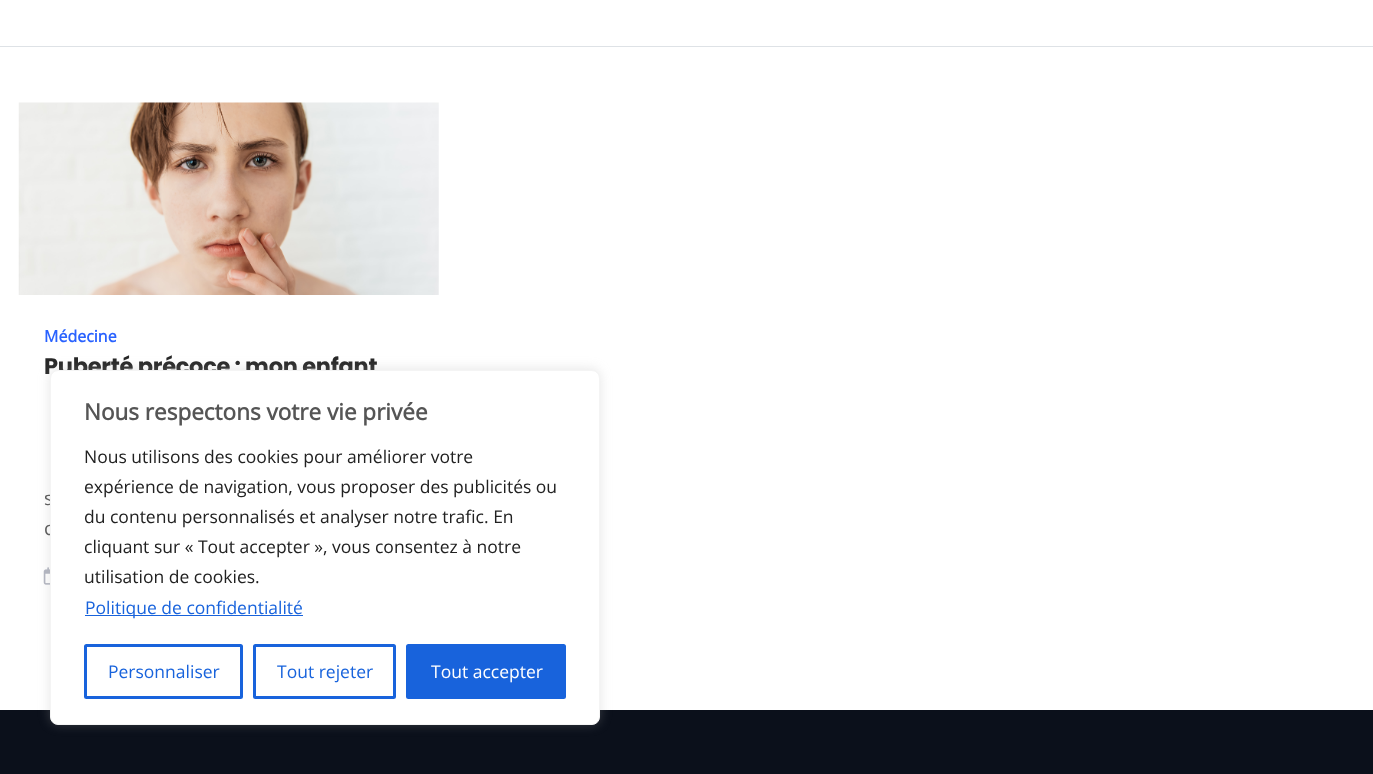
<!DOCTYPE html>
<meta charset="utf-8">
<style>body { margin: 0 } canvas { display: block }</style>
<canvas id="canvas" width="1373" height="774"></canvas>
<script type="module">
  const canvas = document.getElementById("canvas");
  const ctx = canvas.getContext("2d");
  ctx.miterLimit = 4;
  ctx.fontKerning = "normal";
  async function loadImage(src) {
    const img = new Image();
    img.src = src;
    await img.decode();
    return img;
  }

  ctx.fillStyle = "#ffffff";
  ctx.fillRect(0, 0, 1373, 774);
  ctx.fillStyle = "#dee2e6";
  ctx.fillRect(0, 46, 1373, 1);
  ctx.drawImage(await loadImage("img1.png"), 18, 102, 421, 193);
  ctx.font = "bold 16px Open Sans";
  ctx.fillStyle = "#2962ff";
  ctx.fillText("Médecine", 44, 342);
  ctx.letterSpacing = "-0.25px";
  ctx.font = "bold 22.5px Poppins";
  ctx.fillStyle = "#272727";
  ctx.fillText("Puberté précoce : mon enfant", 44, 374);
  ctx.letterSpacing = "0px";
  ctx.font = "19px Open Sans";
  ctx.fillStyle = "#555555";
  ctx.fillText("s", 44, 505);
  ctx.fillText("c", 44, 535);
  ctx.drawImage(await loadImage("img2.png"), 43, 567, 7, 18);
  ctx.fillStyle = "#0b101b";
  ctx.fillRect(0, 710, 1373, 64);
  ctx.fillStyle = "rgba(172, 171, 171, 0.3)";
  ctx.filter = "blur(6px)";
  ctx.beginPath();
  ctx.roundRect(50, 369, 550, 355, 8);
  ctx.fill();
  ctx.filter = "none";
  ctx.fillStyle = "#ffffff";
  ctx.beginPath();
  ctx.roundRect(50.5, 370.5, 549, 354, 7.5);
  ctx.fill();
  ctx.strokeStyle = "#f4f4f4";
  ctx.stroke();
  ctx.font = "bold 22.5px Open Sans";
  ctx.fillStyle = "#555555";
  ctx.fillText("Nous respectons votre vie privée", 84, 420);
  ctx.font = "17.5px Open Sans";
  ctx.fillStyle = "#212121";
  ctx.fillText("Nous utilisons des cookies pour améliorer votre", 84, 463);
  ctx.fillText("expérience de navigation, vous proposer des publicités ou", 84, 493);
  ctx.fillText("du contenu personnalisés et analyser notre trafic. En", 84, 523);
  ctx.fillText("cliquant sur « Tout accepter », vous consentez à notre", 84, 553);
  ctx.fillText("utilisation de cookies.", 84, 583);
  ctx.fillStyle = "#1863dc";
  ctx.fillRect(85, 615, 218, 1);
  ctx.fillText("Politique de confidentialité", 85, 614);
  ctx.beginPath();
  ctx.roundRect(85.5, 645.5, 156, 52, 1);
  ctx.strokeStyle = "#1863dc";
  ctx.lineWidth = 3;
  ctx.stroke();
  ctx.fillText("Personnaliser", 108, 678);
  ctx.beginPath();
  ctx.roundRect(254.5, 645.5, 140, 52, 1);
  ctx.stroke();
  ctx.fillText("Tout rejeter", 277, 678);
  ctx.beginPath();
  ctx.roundRect(407.5, 645.5, 157, 52, 1);
  ctx.fill();
  ctx.stroke();
  ctx.fillStyle = "#ffffff";
  ctx.fillText("Tout accepter", 431, 678);
</script>
